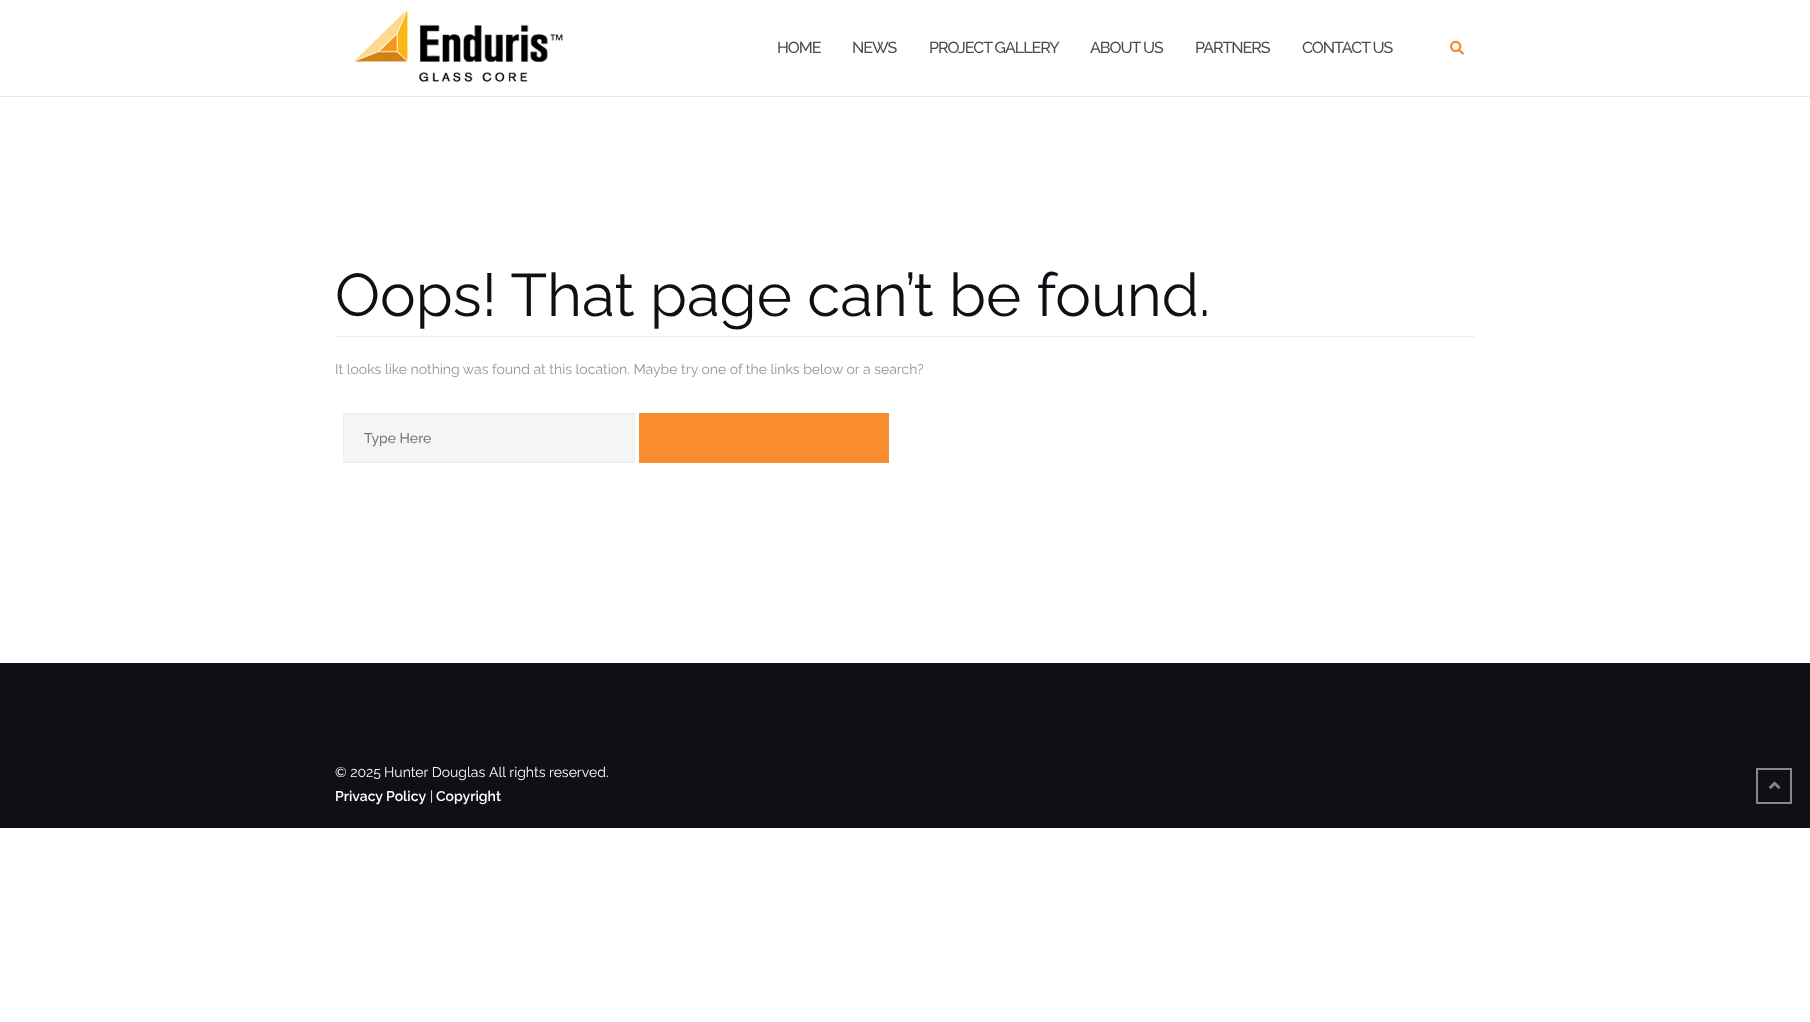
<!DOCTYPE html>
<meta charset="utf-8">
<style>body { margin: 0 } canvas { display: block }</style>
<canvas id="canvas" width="1810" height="1022"></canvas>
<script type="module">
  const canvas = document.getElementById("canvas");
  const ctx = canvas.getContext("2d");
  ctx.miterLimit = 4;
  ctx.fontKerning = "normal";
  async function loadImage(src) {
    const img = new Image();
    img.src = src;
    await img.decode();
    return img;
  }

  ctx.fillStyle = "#ffffff";
  ctx.fillRect(0, 0, 1810, 1022);
  ctx.fillStyle = "#e6e6e6";
  ctx.fillRect(0, 96, 1810, 1);
  ctx.drawImage(await loadImage("img1.png"), 353, 10, 214, 72);
  ctx.letterSpacing = "-1px";
  ctx.font = "500 16px Raleway";
  ctx.fillStyle = "#4c4c4c";
  ctx.fillText("HOME", 777, 53);
  ctx.fillText("NEWS", 852, 53);
  ctx.fillText("PROJECT GALLERY", 929, 53);
  ctx.fillText("ABOUT US", 1090, 53);
  ctx.fillText("PARTNERS", 1195, 53);
  ctx.fillText("CONTACT US", 1302, 53);
  ctx.drawImage(await loadImage("img2.png"), 1450, 40, 14, 15);
  ctx.fillStyle = "#eeeeee";
  ctx.fillRect(335, 336, 1140, 1);
  ctx.letterSpacing = "0px";
  ctx.font = "60px Raleway";
  ctx.fillStyle = "#0e1015";
  ctx.fillText("Oops! That page can’t be found.", 335, 316);
  ctx.font = "14px Raleway";
  ctx.fillStyle = "#8c979e";
  ctx.fillText("It looks like nothing was found at this location. Maybe try one of the links below or a search?", 335, 374);
  ctx.fillStyle = "#f5f5f5";
  ctx.beginPath();
  ctx.rect(343.5, 413.5, 291, 49);
  ctx.fill();
  ctx.strokeStyle = "#eeeeee";
  ctx.stroke();
  ctx.font = "500 14px Raleway";
  ctx.fillStyle = "#757575";
  ctx.fillText("Type Here", 364, 443);
  ctx.fillStyle = "#f98c2f";
  ctx.fillRect(639, 413, 250, 50);
  ctx.fillStyle = "#0e1015";
  ctx.fillRect(0, 663, 1810, 165);
  ctx.font = "14px Raleway";
  ctx.fillStyle = "#fefefe";
  ctx.fillText("© 2025", 335, 777);
  ctx.fillText("Hunter Douglas", 384, 777);
  ctx.fillText("All rights reserved.", 489, 777);
  ctx.font = "600 14px Raleway";
  ctx.fillText("Privacy Policy", 335, 801);
  ctx.font = "14px Raleway";
  ctx.fillText("|", 430, 801);
  ctx.font = "600 14px Raleway";
  ctx.fillText("Copyright", 436, 801);
  ctx.strokeStyle = "#87888a";
  ctx.lineWidth = 2;
  ctx.strokeRect(1757, 769, 34, 34);
  ctx.drawImage(await loadImage("img3.png"), 1769, 781, 12, 8);
</script>
